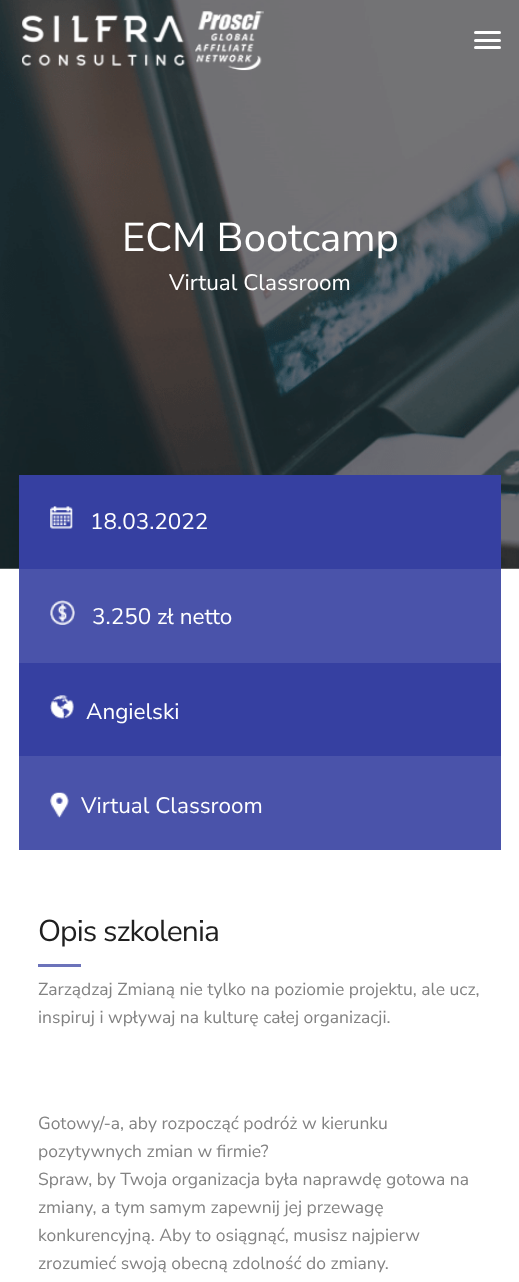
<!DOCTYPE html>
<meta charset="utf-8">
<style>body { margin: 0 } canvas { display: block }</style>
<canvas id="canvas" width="519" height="1282"></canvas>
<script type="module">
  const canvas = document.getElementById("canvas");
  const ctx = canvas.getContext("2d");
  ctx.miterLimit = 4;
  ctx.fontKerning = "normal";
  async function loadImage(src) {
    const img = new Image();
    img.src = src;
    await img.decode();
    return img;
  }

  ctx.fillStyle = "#ffffff";
  ctx.fillRect(0, 0, 519, 1282);
  ctx.drawImage(await loadImage("img2.png"), 0, 0, 519, 569);
  ctx.drawImage(await loadImage("img1.png"), 22, 11, 242, 60);
  ctx.beginPath();
  ctx.roundRect(474, 31, 27, 3, 1.5);
  ctx.fill();
  ctx.beginPath();
  ctx.roundRect(474, 39, 27, 3, 1.5);
  ctx.fill();
  ctx.beginPath();
  ctx.roundRect(474, 46, 27, 3, 1.5);
  ctx.fill();
  ctx.font = "200 40px Nunito Sans";
  ctx.fillText("ECM Bootcamp", 122, 251);
  ctx.font = "200 22.5px Nunito Sans";
  ctx.fillText("Virtual Classroom", 169, 290);
  ctx.fillStyle = "#3640a1";
  ctx.fillRect(19, 475, 482, 94);
  ctx.drawImage(await loadImage("img3.png"), 50, 506, 23, 23);
  ctx.fillStyle = "#ffffff";
  ctx.fillText("18.03.2022", 90, 529);
  ctx.fillStyle = "#4a53aa";
  ctx.fillRect(19, 569, 482, 94);
  ctx.drawImage(await loadImage("img4.png"), 50, 600, 25, 25);
  ctx.fillStyle = "#ffffff";
  ctx.fillText("3.250 zł netto", 92, 624);
  ctx.fillStyle = "#3640a1";
  ctx.fillRect(19, 663, 482, 93);
  ctx.drawImage(await loadImage("img5.png"), 50, 695, 24, 24);
  ctx.fillStyle = "#ffffff";
  ctx.fillText("Angielski", 86, 719);
  ctx.fillStyle = "#4a53aa";
  ctx.fillRect(19, 756, 482, 94);
  ctx.drawImage(await loadImage("img6.png"), 50, 792, 19, 26);
  ctx.fillStyle = "#ffffff";
  ctx.fillText("Virtual Classroom", 81, 813);
  ctx.letterSpacing = "-0.9px";
  ctx.font = "200 30px Nunito Sans";
  ctx.fillStyle = "#1f1f1f";
  ctx.fillText("Opis szkolenia", 38, 941);
  ctx.fillStyle = "#6c73ba";
  ctx.fillRect(38, 964, 43, 3);
  ctx.letterSpacing = "0px";
  ctx.font = "200 17.5px Nunito Sans";
  ctx.fillStyle = "#828282";
  ctx.fillText("Zarządzaj Zmianą nie tylko na poziomie projektu, ale ucz,", 38, 995);
  ctx.fillText("inspiruj i wpływaj na kulturę całej organizacji.", 38, 1023);
  ctx.fillText("Gotowy/-a, aby rozpocząć podróż w kierunku", 38, 1129);
  ctx.fillText("pozytywnych zmian w firmie?", 38, 1157);
  ctx.fillText("Spraw, by Twoja organizacja była naprawdę gotowa na", 38, 1185);
  ctx.fillText("zmiany, a tym samym zapewnij jej przewagę", 38, 1213);
  ctx.fillText("konkurencyjną. Aby to osiągnąć, musisz najpierw", 38, 1241);
  ctx.fillText("zrozumieć swoją obecną zdolność do zmiany.", 38, 1269);
</script>
